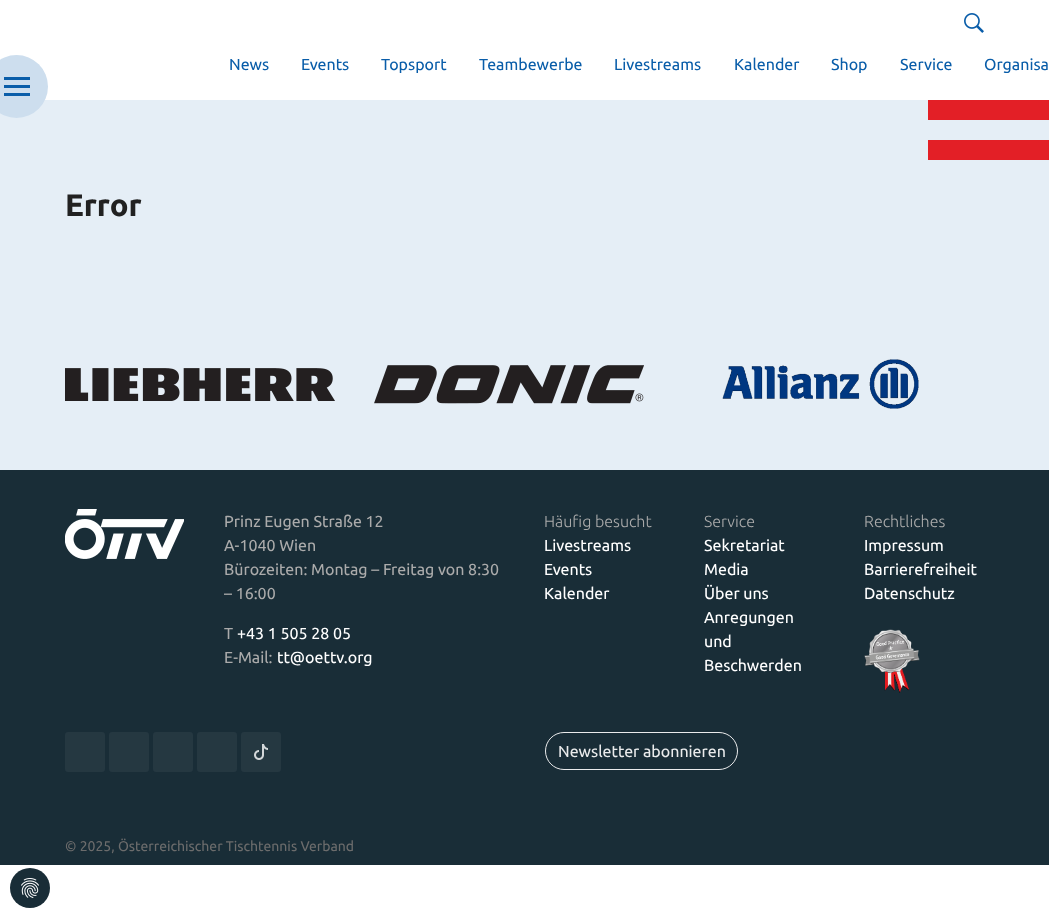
<!DOCTYPE html>
<meta charset="utf-8">
<style>body { margin: 0 } canvas { display: block }</style>
<canvas id="canvas" width="1049" height="918"></canvas>
<script type="module">
  const canvas = document.getElementById("canvas");
  const ctx = canvas.getContext("2d");
  ctx.miterLimit = 4;
  ctx.fontKerning = "normal";
  async function loadImage(src) {
    const img = new Image();
    img.src = src;
    await img.decode();
    return img;
  }

  ctx.fillStyle = "#ffffff";
  ctx.fillRect(0, 0, 1049, 918);
  ctx.drawImage(await loadImage("img1.png"), 964, 13, 20, 20);
  ctx.fillStyle = "#e5eef6";
  ctx.fillRect(0, 100, 1049, 370);
  ctx.fillStyle = "#cddeee";
  ctx.beginPath();
  ctx.arc(16.5, 86.5, 31.5, 0, Math.PI * 2);
  ctx.fill();
  ctx.fillStyle = "#095da9";
  ctx.fillRect(4, 77, 26, 3);
  ctx.fillRect(4, 85, 26, 3);
  ctx.fillRect(4, 93, 26, 3);
  ctx.font = "16px Ubuntu";
  ctx.fillText("News", 229, 70);
  ctx.fillText("Events", 301, 70);
  ctx.fillText("Topsport", 381, 70);
  ctx.fillText("Teambewerbe", 479, 70);
  ctx.fillText("Livestreams", 614, 70);
  ctx.fillText("Kalender", 734, 70);
  ctx.fillText("Shop", 831, 70);
  ctx.fillText("Service", 900, 70);
  ctx.fillText("Organisa", 984, 70);
  ctx.fillStyle = "#e31f26";
  ctx.fillRect(928, 100, 121, 20);
  ctx.fillRect(928, 140, 121, 20);
  ctx.font = "bold 31px Ubuntu";
  ctx.fillStyle = "#212121";
  ctx.fillText("Error", 65, 216);
  ctx.drawImage(await loadImage("img2.png"), 65, 368, 270, 33);
  ctx.drawImage(await loadImage("img3.png"), 374, 365, 270, 39);
  ctx.drawImage(await loadImage("img4.png"), 722, 359, 197, 50);
  ctx.fillStyle = "#192d37";
  ctx.fillRect(0, 470, 1049, 395);
  ctx.drawImage(await loadImage("img5.png"), 65, 509, 119, 50);
  ctx.font = "16px Ubuntu";
  ctx.fillStyle = "#ababab";
  ctx.fillText("Prinz Eugen Straße 12", 224, 527);
  ctx.fillText("A-1040 Wien", 224, 551);
  ctx.fillText("Bürozeiten: Montag – Freitag von 8:30", 224, 575);
  ctx.fillText("– 16:00", 224, 599);
  ctx.fillText("T", 224, 639);
  ctx.fillStyle = "#ffffff";
  ctx.fillText("+43 1 505 28 05", 237, 639);
  ctx.fillStyle = "#ababab";
  ctx.fillText("E-Mail:", 224, 663);
  ctx.fillStyle = "#ffffff";
  ctx.fillText("tt@oettv.org", 277, 663);
  ctx.font = "300 16px Ubuntu";
  ctx.fillStyle = "#ababab";
  ctx.fillText("Häufig besucht", 544, 527);
  ctx.font = "16px Ubuntu";
  ctx.fillStyle = "#ffffff";
  ctx.fillText("Livestreams", 544, 551);
  ctx.fillText("Events", 544, 575);
  ctx.fillText("Kalender", 544, 599);
  ctx.font = "300 16px Ubuntu";
  ctx.fillStyle = "#ababab";
  ctx.fillText("Service", 704, 527);
  ctx.font = "16px Ubuntu";
  ctx.fillStyle = "#ffffff";
  ctx.fillText("Sekretariat", 704, 551);
  ctx.fillText("Media", 704, 575);
  ctx.fillText("Über uns", 704, 599);
  ctx.fillText("Anregungen", 704, 623);
  ctx.fillText("und", 704, 647);
  ctx.fillText("Beschwerden", 704, 671);
  ctx.font = "300 16px Ubuntu";
  ctx.fillStyle = "#ababab";
  ctx.fillText("Rechtliches", 864, 527);
  ctx.font = "16px Ubuntu";
  ctx.fillStyle = "#ffffff";
  ctx.fillText("Impressum", 864, 551);
  ctx.fillText("Barrierefreiheit", 864, 575);
  ctx.fillText("Datenschutz", 864, 599);
  ctx.drawImage(await loadImage("img6.png"), 864, 629, 56, 64);
  ctx.fillStyle = "#253841";
  ctx.beginPath();
  ctx.roundRect(65, 732, 40, 40, 3);
  ctx.fill();
  ctx.beginPath();
  ctx.roundRect(109, 732, 40, 40, 3);
  ctx.fill();
  ctx.beginPath();
  ctx.roundRect(153, 732, 40, 40, 3);
  ctx.fill();
  ctx.beginPath();
  ctx.roundRect(197, 732, 40, 40, 3);
  ctx.fill();
  ctx.beginPath();
  ctx.roundRect(241, 732, 40, 40, 3);
  ctx.fill();
  ctx.drawImage(await loadImage("img7.png"), 254, 744, 14, 16);
  ctx.beginPath();
  ctx.roundRect(545.5, 732.5, 192, 37, 18.5);
  ctx.strokeStyle = "#eaebec";
  ctx.stroke();
  ctx.fillStyle = "#eaebec";
  ctx.fillText("Newsletter abonnieren", 558, 757);
  ctx.font = "14px Ubuntu";
  ctx.fillStyle = "#6c6c6c";
  ctx.fillText("© 2025, Österreichischer Tischtennis Verband", 65, 851);
  ctx.fillStyle = "#192d37";
  ctx.beginPath();
  ctx.arc(30, 888, 20, 0, Math.PI * 2);
  ctx.fill();
  ctx.drawImage(await loadImage("img8.png"), 21, 878, 18, 20);
</script>
